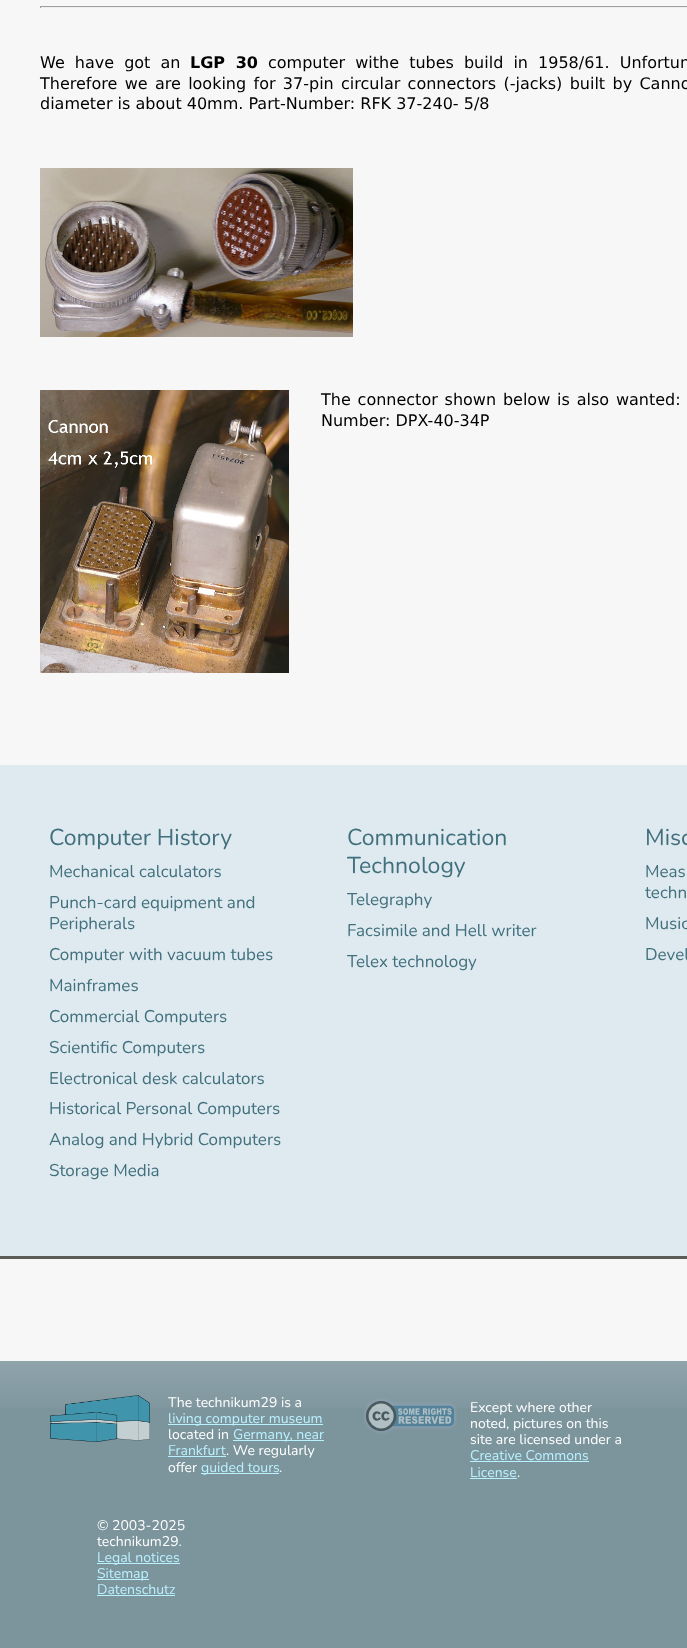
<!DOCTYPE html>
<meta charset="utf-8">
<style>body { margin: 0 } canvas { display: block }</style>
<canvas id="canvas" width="687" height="1648"></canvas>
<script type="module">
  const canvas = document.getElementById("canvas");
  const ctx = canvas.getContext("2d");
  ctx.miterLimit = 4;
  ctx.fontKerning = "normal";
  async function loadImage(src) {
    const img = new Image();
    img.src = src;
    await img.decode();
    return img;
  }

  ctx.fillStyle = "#7c949c";
  ctx.fillRect(0, 0, 687, 1648);
  ctx.fillStyle = "#f7f7f7";
  ctx.fillRect(0, 0, 687, 1361);
  ctx.fillStyle = "#9f9f9f";
  ctx.fillRect(40, 6, 647, 1);
  ctx.fillStyle = "#eeeeee";
  ctx.fillRect(40, 7, 647, 1);
  ctx.fillStyle = "#9f9f9f";
  ctx.fillRect(40, 6, 1, 2);
  ctx.wordSpacing = "5px";
  ctx.font = "16px DejaVu Sans";
  ctx.fillStyle = "#000000";
  ctx.fillText("We have got an", 40, 68);
  ctx.font = "bold 16px DejaVu Sans";
  ctx.fillText("LGP 30", 190, 68);
  ctx.font = "16px DejaVu Sans";
  ctx.fillText("computer withe tubes build in 1958/61. Unfortun", 268, 68);
  ctx.wordSpacing = "2.25px";
  ctx.fillText("Therefore we are looking for 37-pin circular connectors (-jacks) built by Canno", 40, 89);
  ctx.wordSpacing = "0px";
  ctx.fillText("diameter is about 40mm. Part-Number: RFK 37-240- 5/8", 40, 109);
  ctx.drawImage(await loadImage("img1.png"), 40, 168, 313, 169);
  ctx.drawImage(await loadImage("img2.png"), 40, 390, 249, 283);
  ctx.wordSpacing = "1.75px";
  ctx.fillText("The connector shown below is also wanted:", 321, 405);
  ctx.wordSpacing = "0px";
  ctx.fillText("Number: DPX-40-34P", 321, 426);
  ctx.fillStyle = "#dfeaf0";
  ctx.fillRect(0, 765, 687, 491);
  ctx.font = "23px Nunito";
  ctx.fillStyle = "#41707d";
  ctx.fillText("Computer History", 49, 845);
  ctx.font = "17px Nunito";
  ctx.fillText("Mechanical calculators", 49, 877);
  ctx.fillText("Punch-card equipment and", 49, 908);
  ctx.fillText("Peripherals", 49, 929);
  ctx.fillText("Computer with vacuum tubes", 49, 960);
  ctx.fillText("Mainframes", 49, 991);
  ctx.fillText("Commercial Computers", 49, 1022);
  ctx.fillText("Scientific Computers", 49, 1053);
  ctx.fillText("Electronical desk calculators", 49, 1084);
  ctx.fillText("Historical Personal Computers", 49, 1114);
  ctx.fillText("Analog and Hybrid Computers", 49, 1145);
  ctx.fillText("Storage Media", 49, 1176);
  ctx.font = "23px Nunito";
  ctx.fillText("Communication", 347, 845);
  ctx.fillText("Technology", 347, 873);
  ctx.font = "17px Nunito";
  ctx.fillText("Telegraphy", 347, 905);
  ctx.fillText("Facsimile and Hell writer", 347, 936);
  ctx.fillText("Telex technology", 347, 967);
  ctx.font = "23px Nunito";
  ctx.fillText("Misc", 645, 845);
  ctx.font = "17px Nunito";
  ctx.fillText("Meas", 645, 877);
  ctx.fillText("techn", 645, 898);
  ctx.fillText("Music", 645, 929);
  ctx.fillText("Devel", 645, 960);
  ctx.fillStyle = "#5d5c58";
  ctx.fillRect(0, 1256, 687, 3);
  ctx.drawImage(await loadImage("img3.png"), 0, 1361, 687, 47);
  ctx.drawImage(await loadImage("img4.png"), 50, 1395, 100, 47);
  ctx.font = "14px Nunito";
  ctx.fillStyle = "#ffffff";
  ctx.fillText("The technikum29 is a", 168, 1407);
  ctx.fillStyle = "#baf1ff";
  ctx.fillRect(168, 1424, 155, 1);
  ctx.fillText("living computer museum", 168, 1423);
  ctx.fillStyle = "#ffffff";
  ctx.fillText("located in", 168, 1439);
  ctx.fillStyle = "#baf1ff";
  ctx.fillRect(233, 1440, 91, 1);
  ctx.fillText("Germany, near", 233, 1439);
  ctx.fillText("Frankfurt", 168, 1455);
  ctx.fillRect(168, 1456, 58, 1);
  ctx.fillStyle = "#ffffff";
  ctx.fillText(". We regularly", 226, 1455);
  ctx.fillText("offer", 168, 1472);
  ctx.fillStyle = "#baf1ff";
  ctx.fillRect(201, 1473, 78, 1);
  ctx.fillText("guided tours", 201, 1472);
  ctx.fillStyle = "#ffffff";
  ctx.fillText(".", 279, 1472);
  ctx.drawImage(await loadImage("img5.png"), 363, 1398, 94, 36);
  ctx.fillText("Except where other", 470, 1412);
  ctx.fillText("noted, pictures on this", 470, 1428);
  ctx.fillText("site are licensed under a", 470, 1444);
  ctx.fillStyle = "#baf1ff";
  ctx.fillText("Creative Commons", 470, 1460);
  ctx.fillRect(470, 1461, 119, 1);
  ctx.fillText("License", 470, 1477);
  ctx.fillRect(470, 1478, 47, 1);
  ctx.fillStyle = "#ffffff";
  ctx.fillText(".", 517, 1477);
  ctx.fillText("© 2003-2025", 97, 1530);
  ctx.fillText("technikum29.", 97, 1546);
  ctx.fillStyle = "#baf1ff";
  ctx.fillRect(97, 1563, 83, 1);
  ctx.fillText("Legal notices", 97, 1562);
  ctx.fillRect(97, 1579, 52, 1);
  ctx.fillText("Sitemap", 97, 1578);
  ctx.fillText("Datenschutz", 97, 1594);
  ctx.fillRect(97, 1595, 78, 1);
</script>
